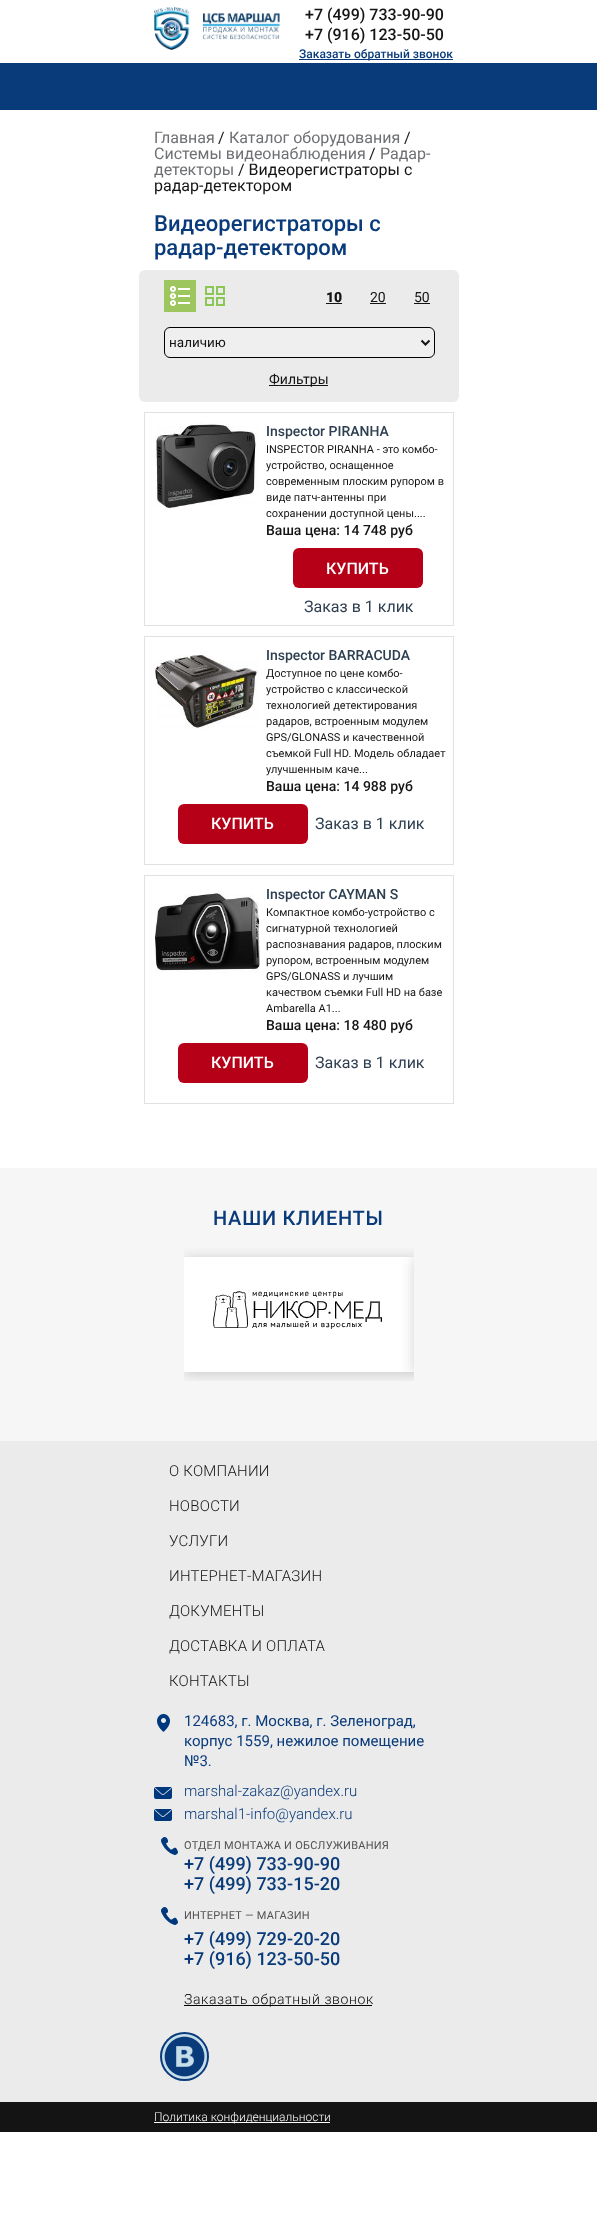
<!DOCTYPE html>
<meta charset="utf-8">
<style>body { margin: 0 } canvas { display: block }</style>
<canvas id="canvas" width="597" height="2229"></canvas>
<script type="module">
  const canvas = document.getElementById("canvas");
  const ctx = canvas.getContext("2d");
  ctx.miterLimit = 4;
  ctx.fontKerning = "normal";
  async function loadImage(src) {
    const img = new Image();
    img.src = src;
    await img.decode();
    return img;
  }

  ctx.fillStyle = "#ffffff";
  ctx.fillRect(0, 0, 597, 2229);
  ctx.fillStyle = "#093b7b";
  ctx.fillRect(0, 63, 597, 47);
  ctx.drawImage(await loadImage("img1.png"), 154, 7, 126, 43);
  ctx.font = "500 16px Roboto";
  ctx.fillStyle = "#141414";
  ctx.fillText("+7 (499) 733-90-90", 305, 20);
  ctx.fillText("+7 (916) 123-50-50", 305, 40);
  ctx.fillStyle = "#093b7b";
  ctx.fillRect(299, 59, 154, 1);
  ctx.font = "500 12px Roboto";
  ctx.fillText("Заказать обратный звонок", 299, 58);
  ctx.font = "16px Roboto";
  ctx.fillStyle = "#6e7074";
  ctx.fillText("Главная", 154, 143);
  ctx.fillStyle = "#141414";
  ctx.fillText("/", 218, 143);
  ctx.fillStyle = "#6e7074";
  ctx.fillText("Каталог оборудования", 229, 143);
  ctx.fillStyle = "#141414";
  ctx.fillText("/", 404, 143);
  ctx.fillStyle = "#6e7074";
  ctx.fillText("Системы видеонаблюдения", 154, 159);
  ctx.fillStyle = "#141414";
  ctx.fillText("/", 369, 159);
  ctx.fillStyle = "#6e7074";
  ctx.fillText("Радар-", 380, 159);
  ctx.fillText("детекторы", 154, 175);
  ctx.fillStyle = "#141414";
  ctx.fillText("/ Видеорегистраторы с", 238, 175);
  ctx.fillText("радар-детектором", 154, 191);
  ctx.font = "500 22px Roboto";
  ctx.fillStyle = "#093b7b";
  ctx.fillText("Видеорегистраторы с", 154, 231);
  ctx.fillText("радар-детектором", 154, 255);
  ctx.fillStyle = "#ebebeb";
  ctx.beginPath();
  ctx.roundRect(139, 270, 320, 132, 6);
  ctx.fill();
  ctx.fillStyle = "#9ec65e";
  ctx.fillRect(164, 280, 32, 32);
  ctx.drawImage(await loadImage("img2.png"), 170, 286, 20, 20);
  ctx.drawImage(await loadImage("img3.png"), 205, 286, 20, 20);
  ctx.font = "900 14px Roboto";
  ctx.fillStyle = "#141414";
  ctx.fillText("10", 326, 302);
  ctx.fillRect(326, 303, 16, 1);
  ctx.font = "14px Roboto";
  ctx.fillText("20", 370, 302);
  ctx.fillRect(370, 303, 16, 1);
  ctx.fillText("50", 414, 302);
  ctx.fillRect(414, 303, 16, 1);
  ctx.fillStyle = "#efefef";
  ctx.beginPath();
  ctx.roundRect(164.5, 327.5, 270, 30, 5.5);
  ctx.fill();
  ctx.strokeStyle = "#000000";
  ctx.stroke();
  ctx.beginPath();
  ctx.moveTo(421.5, 340.5);
  ctx.lineTo(425.5, 344.5);
  ctx.lineTo(429.5, 340.5);
  ctx.strokeStyle = "#141414";
  ctx.lineWidth = 2;
  ctx.stroke();
  ctx.font = "13.5px Roboto";
  ctx.fillStyle = "#141414";
  ctx.fillText("наличию", 169, 347);
  ctx.fillRect(269, 385, 59, 1);
  ctx.font = "14px Roboto";
  ctx.fillText("Фильтры", 269, 384);
  ctx.strokeStyle = "#e1e1e1";
  ctx.lineWidth = 1;
  ctx.strokeRect(144.5, 412.5, 309, 213);
  ctx.drawImage(await loadImage("img4.png"), 155, 422, 104, 88);
  ctx.font = "500 14px Roboto";
  ctx.fillStyle = "#2c3e50";
  ctx.fillText("Inspector PIRANHA", 266, 436);
  ctx.font = "11px Roboto";
  ctx.fillStyle = "#141414";
  ctx.fillText("INSPECTOR PIRANHA - это комбо-", 266, 453);
  ctx.fillText("устройство, оснащенное", 266, 469);
  ctx.fillText("современным плоским рупором в", 266, 485);
  ctx.fillText("виде патч-антенны при", 266, 501);
  ctx.fillText("сохранении доступной цены....", 266, 517);
  ctx.font = "500 14px Roboto";
  ctx.fillText("Ваша цена: 14 748 руб", 266, 535);
  ctx.fillStyle = "#b60017";
  ctx.beginPath();
  ctx.roundRect(293, 548, 130, 40, 6);
  ctx.fill();
  ctx.font = "500 16px Roboto";
  ctx.fillStyle = "#ffffff";
  ctx.fillText("КУПИТЬ", 326, 574);
  ctx.font = "16px Roboto";
  ctx.fillStyle = "#2c3e50";
  ctx.fillText("Заказ в 1 клик", 304, 612);
  ctx.strokeRect(144.5, 636.5, 309, 228);
  ctx.drawImage(await loadImage("img5.png"), 155, 655, 104, 74);
  ctx.font = "500 14px Roboto";
  ctx.fillText("Inspector BARRACUDA", 266, 660);
  ctx.font = "11px Roboto";
  ctx.fillStyle = "#141414";
  ctx.fillText("Доступное по цене комбо-", 266, 677);
  ctx.fillText("устройство с классической", 266, 693);
  ctx.fillText("технологией детектирования", 266, 709);
  ctx.fillText("радаров, встроенным модулем", 266, 725);
  ctx.fillText("GPS/GLONASS и качественной", 266, 741);
  ctx.fillText("съемкой Full HD. Модель обладает", 266, 757);
  ctx.fillText("улучшенным каче...", 266, 773);
  ctx.font = "500 14px Roboto";
  ctx.fillText("Ваша цена: 14 988 руб", 266, 791);
  ctx.fillStyle = "#b60017";
  ctx.beginPath();
  ctx.roundRect(178, 804, 130, 40, 6);
  ctx.fill();
  ctx.font = "500 16px Roboto";
  ctx.fillStyle = "#ffffff";
  ctx.fillText("КУПИТЬ", 211, 829);
  ctx.font = "16px Roboto";
  ctx.fillStyle = "#2c3e50";
  ctx.fillText("Заказ в 1 клик", 315, 829);
  ctx.strokeRect(144.5, 875.5, 309, 228);
  ctx.drawImage(await loadImage("img6.png"), 155, 892, 105, 81);
  ctx.font = "500 14px Roboto";
  ctx.fillText("Inspector CAYMAN S", 266, 899);
  ctx.font = "11px Roboto";
  ctx.fillStyle = "#141414";
  ctx.fillText("Компактное комбо-устройство с", 266, 916);
  ctx.fillText("сигнатурной технологией", 266, 932);
  ctx.fillText("распознавания радаров, плоским", 266, 948);
  ctx.fillText("рупором, встроенным модулем", 266, 964);
  ctx.fillText("GPS/GLONASS и лучшим", 266, 980);
  ctx.fillText("качеством съемки Full HD на базе", 266, 996);
  ctx.fillText("Ambarella A1...", 266, 1012);
  ctx.font = "500 14px Roboto";
  ctx.fillText("Ваша цена: 18 480 руб", 266, 1030);
  ctx.fillStyle = "#b60017";
  ctx.beginPath();
  ctx.roundRect(178, 1043, 130, 40, 6);
  ctx.fill();
  ctx.font = "500 16px Roboto";
  ctx.fillStyle = "#ffffff";
  ctx.fillText("КУПИТЬ", 211, 1068);
  ctx.font = "16px Roboto";
  ctx.fillStyle = "#2c3e50";
  ctx.fillText("Заказ в 1 клик", 315, 1068);
  ctx.fillStyle = "#f6f6f6";
  ctx.fillRect(0, 1168, 597, 273);
  ctx.letterSpacing = "0.75px";
  ctx.font = "500 20px Roboto";
  ctx.fillStyle = "#093b7b";
  ctx.fillText("НАШИ КЛИЕНТЫ", 213, 1225);
  ctx.save();
  ctx.beginPath();
  ctx.rect(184, 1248, 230, 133);
  ctx.clip();
  ctx.fillStyle = "rgba(20, 20, 20, 0.2)";
  ctx.filter = "blur(7px)";
  ctx.beginPath();
  ctx.rect(184, 1259, 230, 115);
  ctx.fill();
  ctx.filter = "none";
  ctx.restore();
  ctx.fillStyle = "#ffffff";
  ctx.fillRect(184, 1257, 230, 115);
  ctx.drawImage(await loadImage("img7.png"), 213, 1291, 169, 38);
  ctx.save();
  ctx.beginPath();
  ctx.rect(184, 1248, 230, 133);
  ctx.clip();
  ctx.fillStyle = "rgba(20, 20, 20, 0.2)";
  ctx.filter = "blur(7px)";
  ctx.beginPath();
  ctx.rect(414, 1259, 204, 115);
  ctx.fill();
  ctx.filter = "none";
  ctx.restore();
  ctx.fillStyle = "#ebebeb";
  ctx.fillRect(0, 1441, 597, 661);
  ctx.letterSpacing = "0.25px";
  ctx.font = "300 15px Roboto";
  ctx.fillStyle = "#141414";
  ctx.fillText("О КОМПАНИИ", 169, 1476);
  ctx.fillText("НОВОСТИ", 169, 1511);
  ctx.fillText("УСЛУГИ", 169, 1546);
  ctx.fillText("ИНТЕРНЕТ-МАГАЗИН", 169, 1581);
  ctx.fillText("ДОКУМЕНТЫ", 169, 1616);
  ctx.fillText("ДОСТАВКА И ОПЛАТА", 169, 1651);
  ctx.fillText("КОНТАКТЫ", 169, 1686);
  ctx.drawImage(await loadImage("img8.png"), 157, 1714, 13, 18);
  ctx.letterSpacing = "0px";
  ctx.font = "15px Roboto";
  ctx.fillStyle = "#093b7b";
  ctx.fillText("124683, г. Москва, г. Зеленоград,", 184, 1726);
  ctx.fillText("корпус 1559, нежилое помещение", 184, 1746);
  ctx.fillText("№3.", 184, 1766);
  ctx.drawImage(await loadImage("img9.png"), 154, 1787, 18, 12);
  ctx.font = "300 15px Roboto";
  ctx.fillText("marshal-zakaz@yandex.ru", 184, 1796);
  ctx.drawImage(await loadImage("img9.png"), 154, 1809, 18, 12);
  ctx.fillText("marshal1-info@yandex.ru", 184, 1819);
  ctx.drawImage(await loadImage("img10.png"), 161, 1837, 17, 18);
  ctx.letterSpacing = "0.25px";
  ctx.font = "11px Roboto";
  ctx.fillStyle = "#525252";
  ctx.fillText("ОТДЕЛ МОНТАЖА И ОБСЛУЖИВАНИЯ", 184, 1849);
  ctx.letterSpacing = "0px";
  ctx.font = "500 18px Roboto";
  ctx.fillStyle = "#093b7b";
  ctx.fillText("+7 (499) 733-90-90", 184, 1870);
  ctx.fillText("+7 (499) 733-15-20", 184, 1890);
  ctx.drawImage(await loadImage("img10.png"), 161, 1907, 17, 18);
  ctx.letterSpacing = "0.25px";
  ctx.font = "11px Roboto";
  ctx.fillStyle = "#525252";
  ctx.fillText("ИНТЕРНЕТ — МАГАЗИН", 184, 1919);
  ctx.letterSpacing = "0px";
  ctx.font = "500 18px Roboto";
  ctx.fillStyle = "#093b7b";
  ctx.fillText("+7 (499) 729-20-20", 184, 1945);
  ctx.fillText("+7 (916) 123-50-50", 184, 1965);
  ctx.fillStyle = "#000000";
  ctx.fillRect(184, 2005, 188, 1);
  ctx.letterSpacing = "0.6px";
  ctx.font = "300 14px Roboto";
  ctx.fillText("Заказать обратный звонок", 184, 2004);
  ctx.fillStyle = "#093b7b";
  ctx.beginPath();
  ctx.arc(184.5, 2056.5, 24.5, 0, Math.PI * 2);
  ctx.fill();
  ctx.drawImage(await loadImage("img11.png"), 162, 2034, 45, 45);
  ctx.fillStyle = "#141414";
  ctx.fillRect(0, 2102, 597, 30);
  ctx.fillStyle = "#fefefe";
  ctx.fillRect(154, 2122, 176, 1);
  ctx.letterSpacing = "0px";
  ctx.font = "300 12px Roboto";
  ctx.fillStyle = "#ffffff";
  ctx.fillText("Политика конфиденциальности", 154, 2121);
</script>
